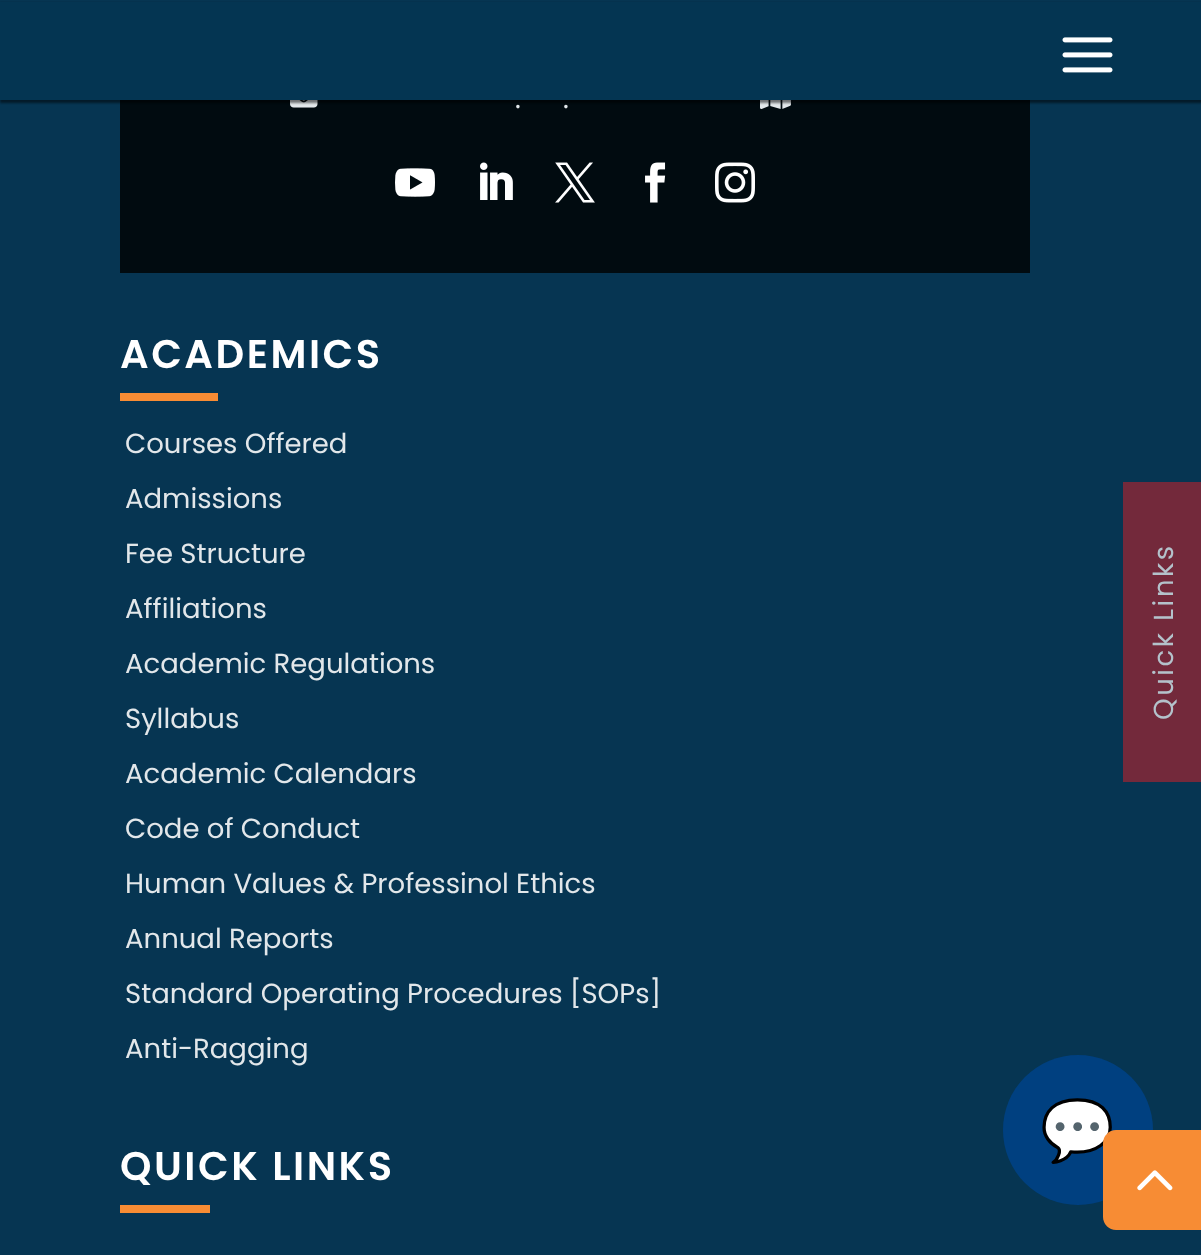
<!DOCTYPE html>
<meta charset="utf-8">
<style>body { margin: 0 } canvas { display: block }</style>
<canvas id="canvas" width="1201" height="1255"></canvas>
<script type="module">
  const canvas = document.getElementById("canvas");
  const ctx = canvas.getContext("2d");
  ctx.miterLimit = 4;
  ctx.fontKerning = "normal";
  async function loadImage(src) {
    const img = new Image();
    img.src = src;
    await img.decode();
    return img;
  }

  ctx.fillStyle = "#063552";
  ctx.fillRect(0, 0, 1201, 1255);
  ctx.fillStyle = "#010b10";
  ctx.fillRect(120, 100, 910, 173);
  ctx.drawImage(await loadImage("img1.png"), 290, 100, 28, 8);
  ctx.letterSpacing = "2.5px";
  ctx.font = "27.5px Poppins";
  ctx.fillStyle = "#e2e7ea";
  ctx.fillText(".", 515, 108);
  ctx.fillText(".", 563, 108);
  ctx.drawImage(await loadImage("img2.png"), 760, 100, 31, 9);
  ctx.drawImage(await loadImage("img3.png"), 395, 168, 40, 29);
  ctx.drawImage(await loadImage("img4.png"), 480, 162, 33, 38);
  ctx.drawImage(await loadImage("img5.png"), 555, 162, 40, 41);
  ctx.drawImage(await loadImage("img6.png"), 645, 162, 21, 41);
  ctx.drawImage(await loadImage("img7.png"), 715, 162, 40, 41);
  ctx.font = "600 40px Poppins";
  ctx.fillStyle = "#ffffff";
  ctx.fillText("ACADEMICS", 120, 368);
  ctx.fillStyle = "#f78c34";
  ctx.fillRect(120, 393, 98, 8);
  ctx.letterSpacing = "0px";
  ctx.font = "27.5px Poppins";
  ctx.fillStyle = "#e2e7ea";
  ctx.fillText("Courses Offered", 125, 453);
  ctx.fillText("Admissions", 125, 508);
  ctx.fillText("Fee Structure", 125, 563);
  ctx.fillText("Affiliations", 125, 618);
  ctx.fillText("Academic Regulations", 125, 673);
  ctx.fillText("Syllabus", 125, 728);
  ctx.fillText("Academic Calendars", 125, 783);
  ctx.fillText("Code of Conduct", 125, 838);
  ctx.fillText("Human Values & Professinol Ethics", 125, 893);
  ctx.fillText("Annual Reports", 125, 948);
  ctx.fillText("Standard Operating Procedures [SOPs]", 125, 1003);
  ctx.fillText("Anti-Ragging", 125, 1058);
  ctx.letterSpacing = "2.5px";
  ctx.font = "600 40px Poppins";
  ctx.fillStyle = "#ffffff";
  ctx.fillText("QUICK LINKS", 120, 1180);
  ctx.fillStyle = "#f78c34";
  ctx.fillRect(120, 1205, 90, 8);
  ctx.fillStyle = "rgba(0, 0, 0, 0.5)";
  ctx.filter = "blur(1px)";
  ctx.beginPath();
  ctx.rect(0, 3, 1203, 100);
  ctx.fill();
  ctx.filter = "none";
  ctx.fillStyle = "#043552";
  ctx.fillRect(0, 2, 1201, 98);
  ctx.drawImage(await loadImage("img8.png"), 1062, 37, 51, 36);
  ctx.fillStyle = "#73293b";
  ctx.fillRect(1123, 482, 78, 300);
  ctx.font = "27.5px Poppins";
  ctx.fillStyle = "#b4c2cb";
  ctx.save();
  ctx.translate(1173, 720);
  ctx.rotate(-90 * Math.PI / 180);
  ctx.fillText("Quick Links", 0, 0);
  ctx.restore();
  ctx.fillStyle = "#004080";
  ctx.beginPath();
  ctx.arc(1078, 1130, 75, 0, Math.PI * 2);
  ctx.fill();
  ctx.letterSpacing = "0px";
  ctx.font = "60px Noto Color Emoji";
  ctx.fillStyle = "#ffffff";
  ctx.fillText("💬", 1040, 1151);
  ctx.fillStyle = "#f78c34";
  ctx.beginPath();
  ctx.moveTo(1116, 1130);
  ctx.lineTo(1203, 1130);
  ctx.lineTo(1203, 1230);
  ctx.lineTo(1116, 1230);
  ctx.bezierCurveTo(1109, 1230, 1103, 1224, 1103, 1217);
  ctx.lineTo(1103, 1143);
  ctx.bezierCurveTo(1103, 1136, 1109, 1130, 1116, 1130);
  ctx.closePath();
  ctx.fill();
  ctx.drawImage(await loadImage("img9.png"), 1137, 1170, 36, 21);
</script>
